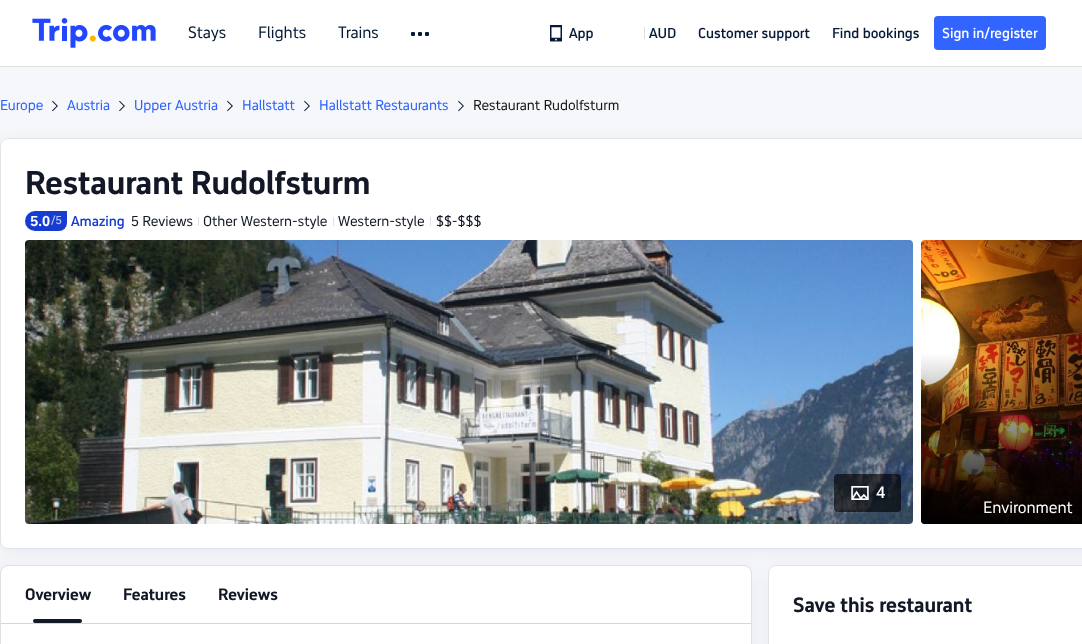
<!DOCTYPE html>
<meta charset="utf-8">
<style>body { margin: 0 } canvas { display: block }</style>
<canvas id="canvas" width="1082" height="644"></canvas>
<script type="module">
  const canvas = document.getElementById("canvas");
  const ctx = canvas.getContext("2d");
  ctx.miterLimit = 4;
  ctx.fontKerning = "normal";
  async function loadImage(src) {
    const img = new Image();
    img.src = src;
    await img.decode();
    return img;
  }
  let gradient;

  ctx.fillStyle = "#f6f7fa";
  ctx.fillRect(0, 0, 1082, 644);
  ctx.fillStyle = "#ffffff";
  ctx.fillRect(0, 0, 1082, 66);
  ctx.fillStyle = "#dddddd";
  ctx.fillRect(0, 66, 1082, 1);
  ctx.drawImage(await loadImage("img1.png"), 32, 18, 124, 30);
  ctx.font = "16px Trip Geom";
  ctx.fillStyle = "#051a37";
  ctx.fillText("Stays", 188, 38);
  ctx.fillText("Flights", 258, 38);
  ctx.fillText("Trains", 338, 38);
  ctx.beginPath();
  ctx.roundRect(411, 32, 4, 4, 1);
  ctx.fill();
  ctx.beginPath();
  ctx.roundRect(418, 32, 4, 4, 1);
  ctx.fill();
  ctx.beginPath();
  ctx.roundRect(425, 32, 4, 4, 1);
  ctx.fill();
  ctx.drawImage(await loadImage("img2.png"), 550, 25, 12, 17);
  ctx.font = "500 14px Trip Geom";
  ctx.fillText("App", 569, 38);
  ctx.fillStyle = "#dadfe6";
  ctx.fillRect(644, 27, 1, 12);
  ctx.fillStyle = "#051a37";
  ctx.fillText("AUD", 649, 38);
  ctx.fillText("Customer support", 698, 38);
  ctx.fillText("Find bookings", 832, 38);
  ctx.fillStyle = "#3264ff";
  ctx.beginPath();
  ctx.roundRect(934, 16, 112, 34, 4);
  ctx.fill();
  ctx.fillStyle = "#ffffff";
  ctx.fillText("Sign in/register", 942, 38);
  ctx.font = "14px Trip Geom";
  ctx.fillStyle = "#2c61fe";
  ctx.fillText("Europe", 0, 110);
  ctx.drawImage(await loadImage("img3.png"), 52, 100, 6, 12);
  ctx.fillText("Austria", 67, 110);
  ctx.drawImage(await loadImage("img3.png"), 119, 100, 6, 12);
  ctx.fillText("Upper Austria", 134, 110);
  ctx.drawImage(await loadImage("img3.png"), 227, 100, 6, 12);
  ctx.fillText("Hallstatt", 242, 110);
  ctx.drawImage(await loadImage("img3.png"), 304, 100, 6, 12);
  ctx.fillText("Hallstatt Restaurants", 319, 110);
  ctx.drawImage(await loadImage("img3.png"), 458, 100, 6, 12);
  ctx.fillStyle = "#151515";
  ctx.fillText("Restaurant Rudolfsturm", 473, 110);
  ctx.fillStyle = "rgba(15, 41, 77, 0.06)";
  ctx.filter = "blur(8px)";
  ctx.beginPath();
  ctx.roundRect(0, 142, 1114, 411, 8);
  ctx.fill();
  ctx.filter = "none";
  ctx.fillStyle = "#ffffff";
  ctx.beginPath();
  ctx.roundRect(0, 138, 1082, 411, [8, 0, 0, 8]);
  ctx.fill();
  ctx.beginPath();
  ctx.roundRect(0.5, 138.5, 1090, 410, 7.5);
  ctx.strokeStyle = "rgba(212, 215, 222, 0.7)";
  ctx.stroke();
  ctx.font = "bold 32px Trip Geom";
  ctx.fillStyle = "#121826";
  ctx.fillText("Restaurant Rudolfsturm", 25, 194);
  ctx.fillStyle = "#173cd2";
  ctx.beginPath();
  ctx.roundRect(25, 211, 42, 20, [10, 0, 8, 10]);
  ctx.fill();
  ctx.font = "bold 14px Trip Geom";
  ctx.fillStyle = "#ffffff";
  ctx.fillText("5.0", 30, 226);
  ctx.font = "500 11px Trip Geom";
  ctx.fillStyle = "#b9c5f2";
  ctx.fillText("/5", 51, 224);
  ctx.font = "500 14px Trip Geom";
  ctx.fillStyle = "#173cd2";
  ctx.fillText("Amazing", 71, 226);
  ctx.font = "14px Trip Geom";
  ctx.fillStyle = "#121826";
  ctx.fillText("5 Reviews", 131, 226);
  ctx.font = "10px Trip Geom";
  ctx.fillStyle = "#d4d7de";
  ctx.fillText("|", 197, 225);
  ctx.font = "14px Trip Geom";
  ctx.fillStyle = "#121826";
  ctx.fillText("Other Western-style", 203, 226);
  ctx.font = "10px Trip Geom";
  ctx.fillStyle = "#d4d7de";
  ctx.fillText("|", 332, 225);
  ctx.font = "14px Trip Geom";
  ctx.fillStyle = "#121826";
  ctx.fillText("Western-style", 338, 226);
  ctx.font = "10px Trip Geom";
  ctx.fillStyle = "#d4d7de";
  ctx.fillText("|", 429, 225);
  ctx.font = "14px Trip Geom";
  ctx.fillStyle = "#121826";
  ctx.fillText("$$-$$$", 436, 226);
  ctx.drawImage(await loadImage("img4.png"), 25, 240, 888, 284);
  ctx.fillStyle = "rgba(0, 0, 0, 0.64)";
  ctx.beginPath();
  ctx.roundRect(834, 474, 67, 38, 4);
  ctx.fill();
  ctx.drawImage(await loadImage("img5.png"), 851, 486, 18, 14);
  ctx.font = "500 16px Trip Geom";
  ctx.fillStyle = "#ffffff";
  ctx.fillText("4", 876, 498);
  ctx.drawImage(await loadImage("img6.png"), 921, 240, 161, 284);
  gradient = ctx.createLinearGradient(1028, 353, 1028, 524);
  gradient.addColorStop(0, "rgba(0, 0, 0, 0)");
  gradient.addColorStop(1, "#000000");
  ctx.fillStyle = gradient;
  ctx.beginPath();
  ctx.roundRect(921, 353, 161, 171, [0, 0, 0, 4]);
  ctx.fill();
  ctx.font = "16px Trip Geom";
  ctx.fillStyle = "#ffffff";
  ctx.fillText("Environment", 983, 513);
  ctx.fillStyle = "rgba(15, 41, 77, 0.06)";
  ctx.filter = "blur(8px)";
  ctx.beginPath();
  ctx.roundRect(0, 569, 752, 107, 8);
  ctx.fill();
  ctx.filter = "none";
  ctx.beginPath();
  ctx.roundRect(0.5, 565.5, 751, 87, 7.5);
  ctx.strokeStyle = "#dee0e6";
  ctx.stroke();
  ctx.fillStyle = "#ffffff";
  ctx.beginPath();
  ctx.roundRect(1, 566, 750, 58, [8, 8, 0, 0]);
  ctx.fill();
  ctx.fillStyle = "#d4d7de";
  ctx.fillRect(1, 623, 750, 1);
  ctx.font = "bold 16px Trip Geom";
  ctx.fillStyle = "#121826";
  ctx.fillText("Overview", 25, 600);
  ctx.beginPath();
  ctx.roundRect(33, 619, 49, 4, 2);
  ctx.fill();
  ctx.fillText("Features", 123, 600);
  ctx.fillText("Reviews", 218, 600);
  ctx.fillStyle = "#ffffff";
  ctx.fillRect(1, 624, 750, 20);
  ctx.fillStyle = "rgba(15, 41, 77, 0.06)";
  ctx.filter = "blur(8px)";
  ctx.beginPath();
  ctx.roundRect(768, 569, 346, 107, 8);
  ctx.fill();
  ctx.filter = "none";
  ctx.fillStyle = "#ffffff";
  ctx.beginPath();
  ctx.roundRect(768, 565, 314, 79, [8, 0, 0, 0]);
  ctx.fill();
  ctx.beginPath();
  ctx.roundRect(768.5, 565.5, 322, 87, 7.5);
  ctx.strokeStyle = "rgba(212, 215, 222, 0.7)";
  ctx.stroke();
  ctx.font = "bold 20px Trip Geom";
  ctx.fillStyle = "#121826";
  ctx.fillText("Save this restaurant", 793, 612);
</script>
